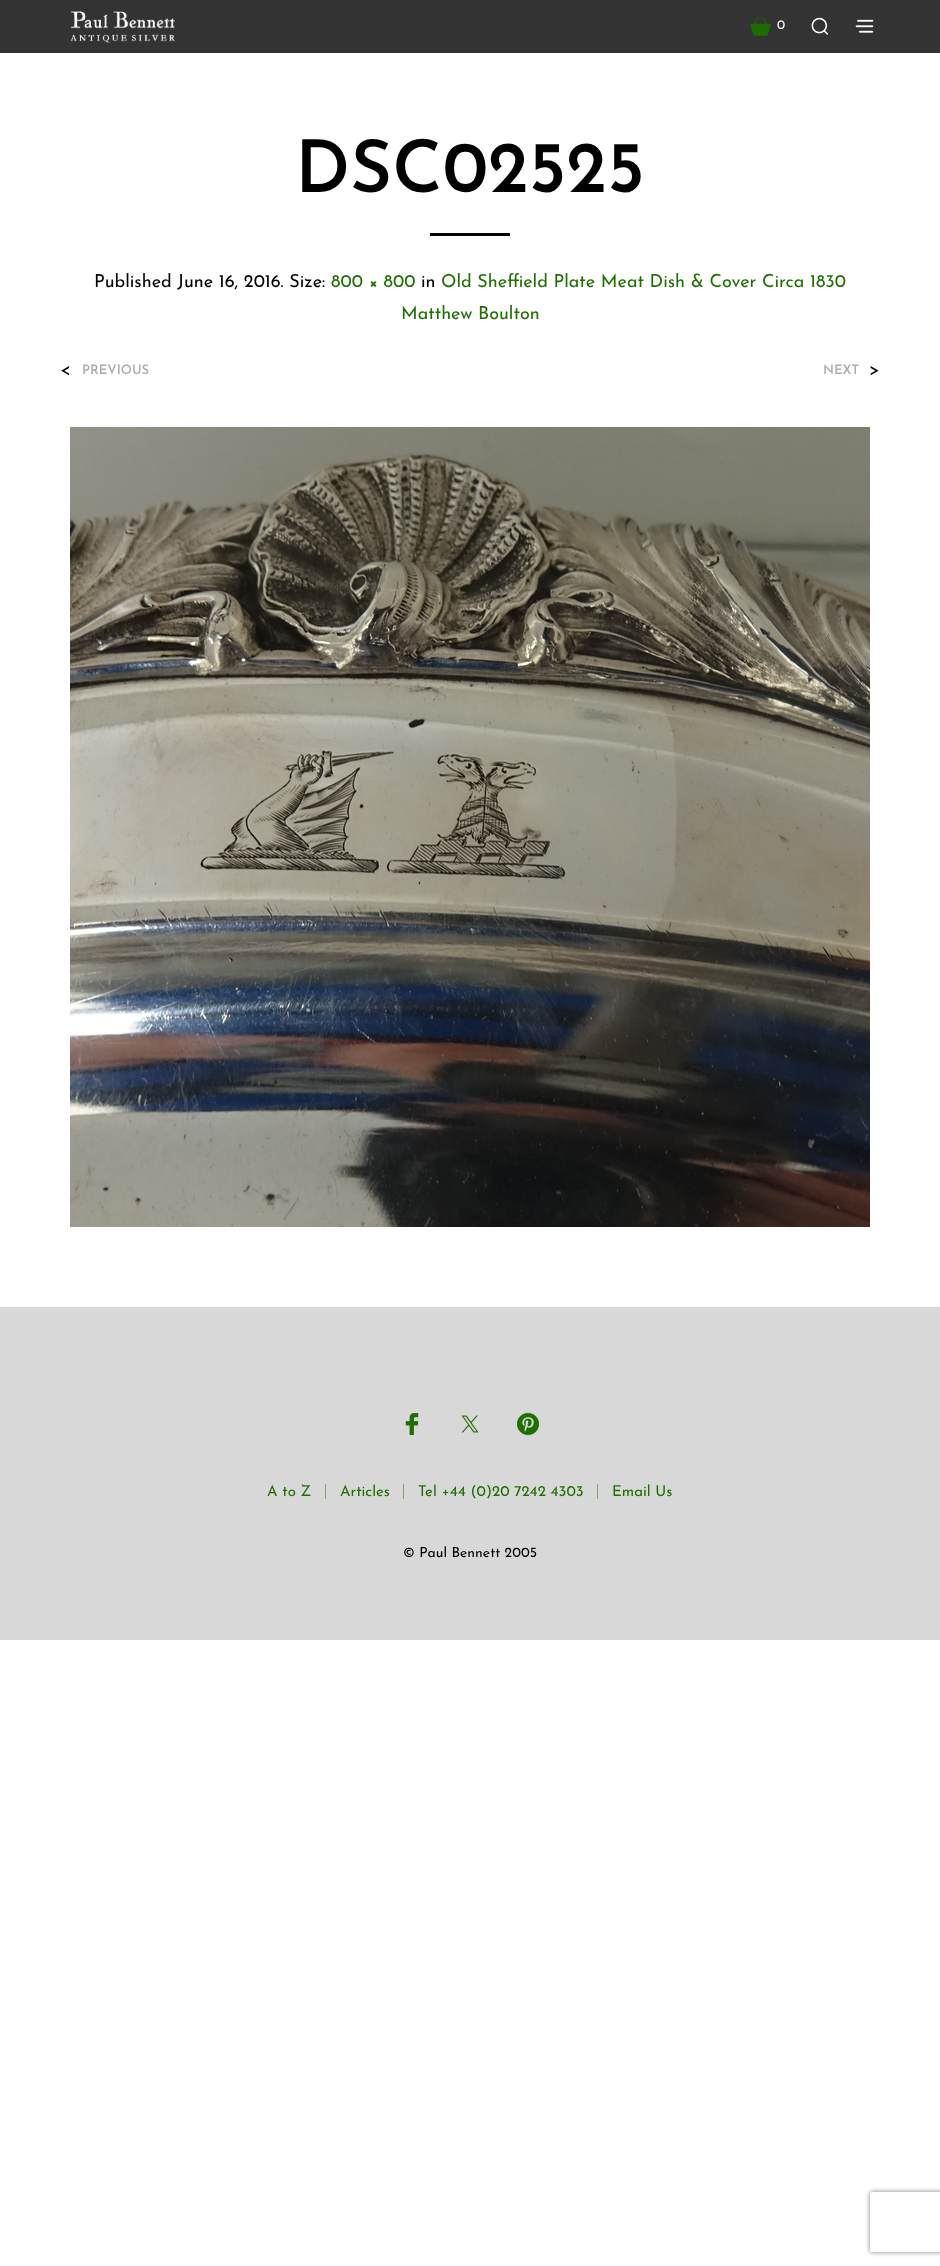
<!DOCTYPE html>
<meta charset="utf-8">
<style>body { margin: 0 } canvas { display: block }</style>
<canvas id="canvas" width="940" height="2266"></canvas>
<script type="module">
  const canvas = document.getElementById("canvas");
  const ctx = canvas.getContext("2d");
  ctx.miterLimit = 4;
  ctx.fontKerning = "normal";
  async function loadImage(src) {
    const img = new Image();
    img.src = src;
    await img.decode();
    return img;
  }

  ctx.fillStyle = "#ffffff";
  ctx.fillRect(0, 0, 940, 2266);
  ctx.fillStyle = "#333333";
  ctx.fillRect(0, 0, 940, 53);
  ctx.drawImage(await loadImage("img1.png"), 70, 11, 105, 32);
  ctx.drawImage(await loadImage("img2.png"), 749, 17, 22, 19);
  ctx.font = "13px Josefin Sans";
  ctx.fillStyle = "#ffffff";
  ctx.fillText("0", 777, 29);
  ctx.drawImage(await loadImage("img3.png"), 811, 17, 17, 18);
  ctx.drawImage(await loadImage("img4.png"), 855, 19, 19, 14);
  ctx.font = "600 72.5px Josefin Sans";
  ctx.fillStyle = "#000000";
  ctx.fillText("DSC02525", 295, 192);
  ctx.fillRect(430, 233, 80, 3);
  ctx.font = "18px Josefin Sans";
  ctx.fillText("Published June 16, 2016. Size:", 94, 287);
  ctx.fillStyle = "#1f7000";
  ctx.fillText("800 × 800", 331, 287);
  ctx.fillStyle = "#000000";
  ctx.fillText("in", 421, 287);
  ctx.fillStyle = "#1f7000";
  ctx.fillText("Old Sheffield Plate Meat Dish & Cover Circa 1830", 441, 287);
  ctx.fillText("Matthew Boulton", 401, 319);
  ctx.fillStyle = "#000000";
  ctx.fillText("<", 60, 375);
  ctx.font = "600 13px Josefin Sans";
  ctx.fillStyle = "#adadad";
  ctx.fillText("PREVIOUS", 82, 374);
  ctx.fillText("NEXT", 823, 374);
  ctx.font = "18px Josefin Sans";
  ctx.fillStyle = "#000000";
  ctx.fillText(">", 869, 375);
  ctx.drawImage(await loadImage("img5.png"), 70, 427, 800, 800);
  ctx.fillStyle = "#d8d8d8";
  ctx.fillRect(0, 1307, 940, 333);
  ctx.drawImage(await loadImage("img6.png"), 405, 1413, 14, 23);
  ctx.drawImage(await loadImage("img7.png"), 461, 1415, 18, 18);
  ctx.drawImage(await loadImage("img8.png"), 517, 1413, 22, 22);
  ctx.font = "15px Josefin Sans";
  ctx.fillStyle = "#1f7000";
  ctx.fillText("A to Z", 267, 1496);
  ctx.fillStyle = "#7ca46c";
  ctx.fillRect(325, 1484, 1, 15);
  ctx.fillStyle = "#1f7000";
  ctx.fillText("Articles", 340, 1496);
  ctx.fillStyle = "#7ca46c";
  ctx.fillRect(403, 1484, 1, 15);
  ctx.fillStyle = "#1f7000";
  ctx.fillText("Tel +44 (0)20 7242 4303", 418, 1496);
  ctx.fillStyle = "#7ca46c";
  ctx.fillRect(597, 1484, 1, 15);
  ctx.fillStyle = "#1f7000";
  ctx.fillText("Email Us", 612, 1496);
  ctx.font = "14px Josefin Sans";
  ctx.fillStyle = "#000000";
  ctx.fillText("© Paul Bennett 2005", 403, 1557);
  ctx.save();
  ctx.beginPath();
  ctx.moveTo(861, 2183);
  ctx.lineTo(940, 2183);
  ctx.lineTo(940, 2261);
  ctx.lineTo(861, 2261);
  ctx.closePath();
  ctx.moveTo(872, 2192);
  ctx.lineTo(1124, 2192);
  ctx.bezierCurveTo(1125, 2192, 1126, 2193, 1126, 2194);
  ctx.lineTo(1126, 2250);
  ctx.bezierCurveTo(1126, 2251, 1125, 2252, 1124, 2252);
  ctx.lineTo(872, 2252);
  ctx.bezierCurveTo(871, 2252, 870, 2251, 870, 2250);
  ctx.lineTo(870, 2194);
  ctx.bezierCurveTo(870, 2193, 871, 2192, 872, 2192);
  ctx.closePath();
  ctx.clip("evenodd");
  ctx.fillStyle = "#808080";
  ctx.filter = "blur(2.5px)";
  ctx.beginPath();
  ctx.roundRect(870, 2192, 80, 60, 2);
  ctx.fill();
  ctx.filter = "none";
  ctx.restore();
</script>
